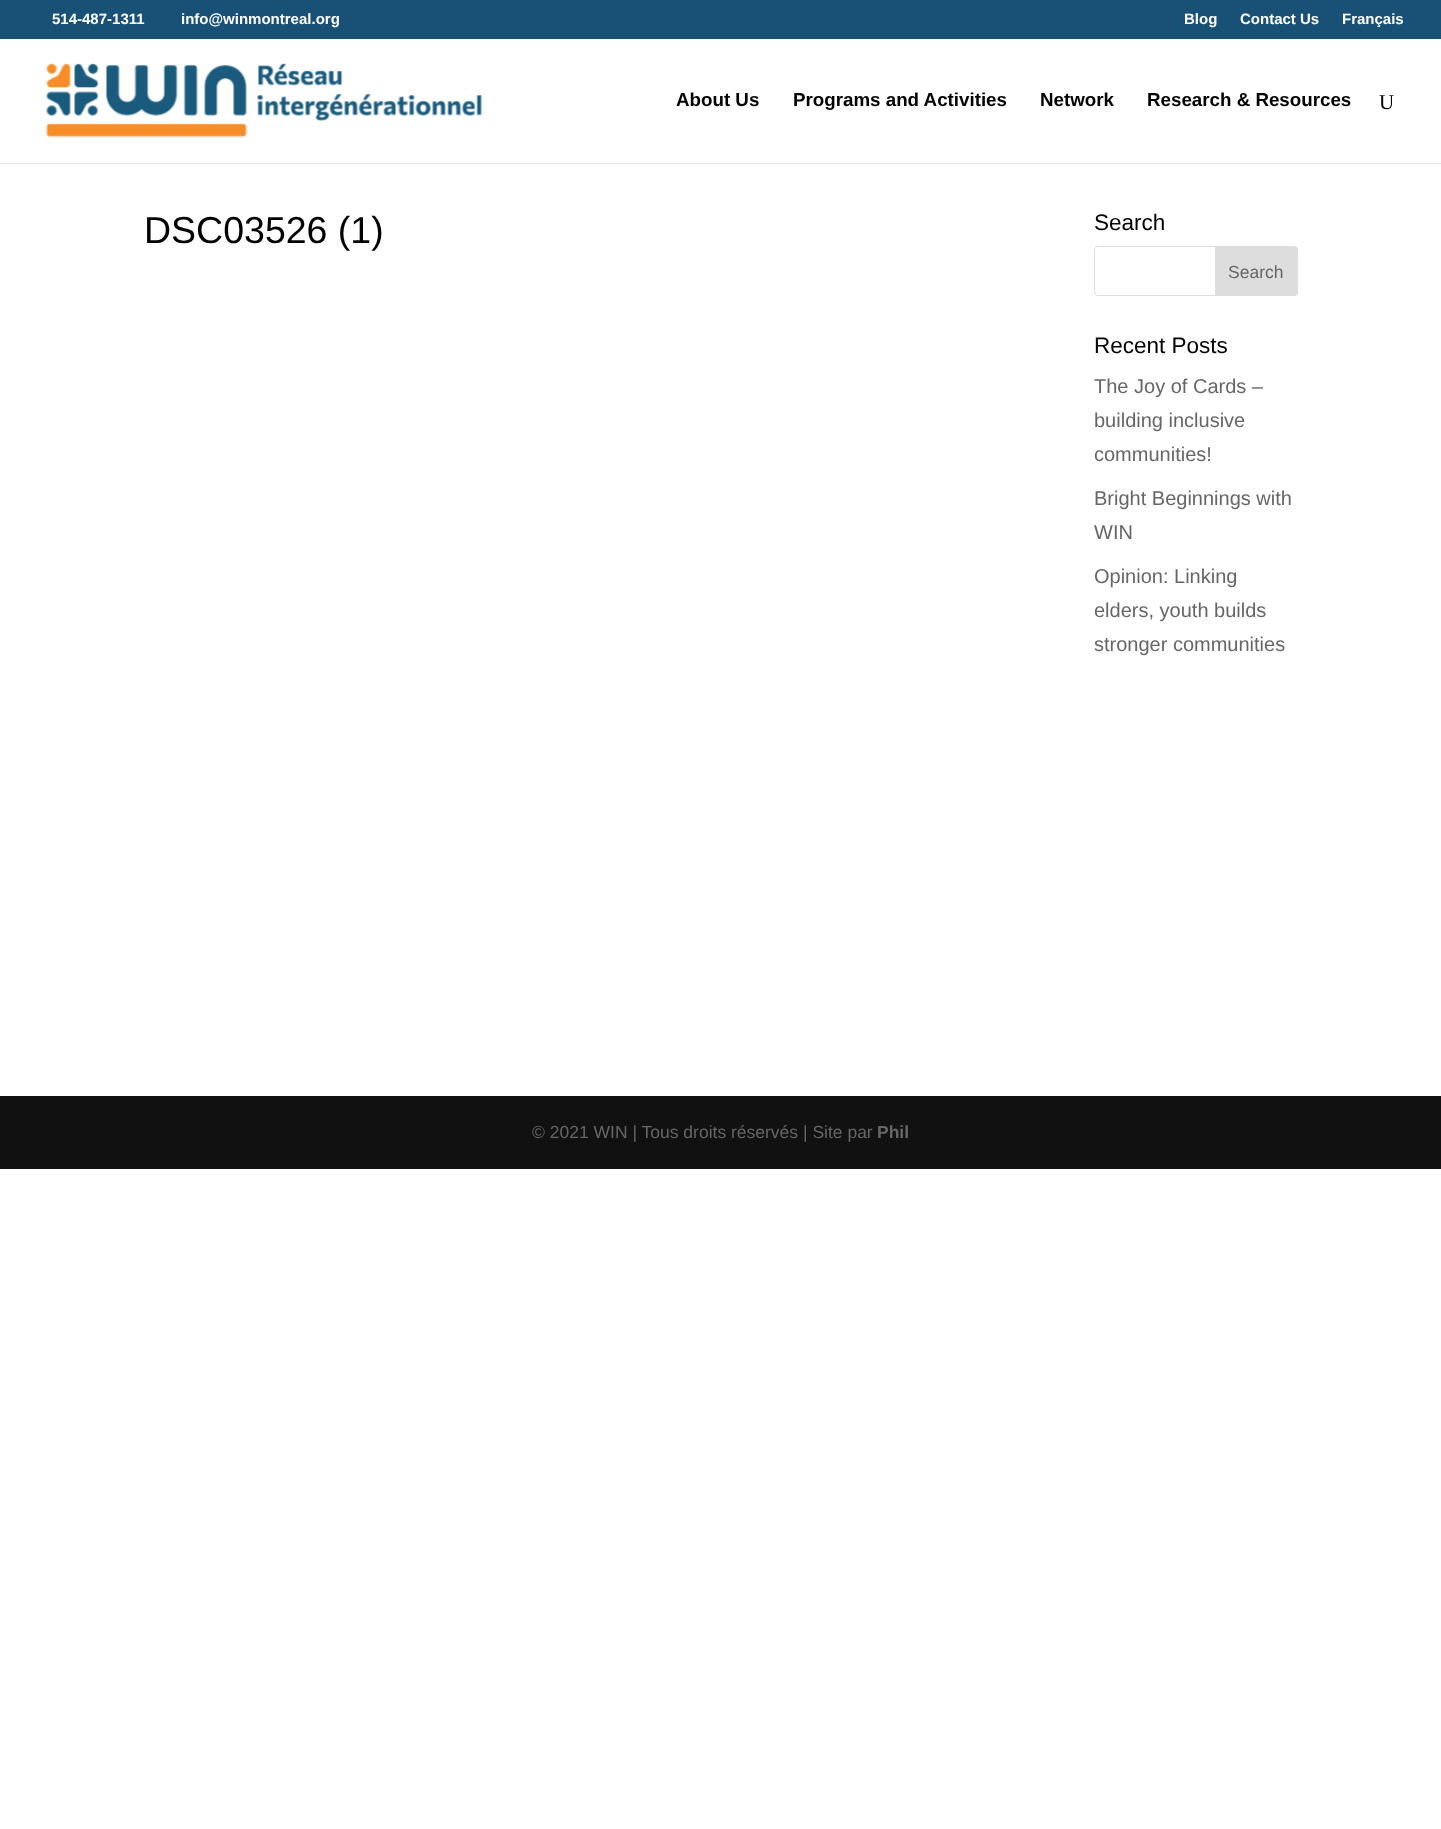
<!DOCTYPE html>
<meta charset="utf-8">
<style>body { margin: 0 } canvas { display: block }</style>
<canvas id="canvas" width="1441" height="1829"></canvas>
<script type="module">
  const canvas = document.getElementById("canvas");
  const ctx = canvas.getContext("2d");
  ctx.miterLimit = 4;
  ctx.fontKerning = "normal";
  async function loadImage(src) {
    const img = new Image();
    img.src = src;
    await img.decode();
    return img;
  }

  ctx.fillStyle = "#ffffff";
  ctx.fillRect(0, 0, 1441, 1829);
  ctx.fillStyle = "#195176";
  ctx.fillRect(0, 0, 1441, 39);
  ctx.font = "bold 15px Liberation Sans";
  ctx.fillStyle = "#ffffff";
  ctx.fillText("514-487-1311", 52, 24);
  ctx.fillText("info@winmontreal.org", 181, 24);
  ctx.fillText("Blog", 1184, 24);
  ctx.fillText("Contact Us", 1240, 24);
  ctx.fillText("Français", 1342, 24);
  ctx.fillStyle = "#e6e6e6";
  ctx.fillRect(0, 163, 1441, 1);
  ctx.drawImage(await loadImage("img1.png"), 46, 63, 437, 75);
  ctx.font = "bold 18.75px Liberation Sans";
  ctx.fillStyle = "#000000";
  ctx.fillText("About Us", 676, 106);
  ctx.fillText("Programs and Activities", 793, 106);
  ctx.fillText("Network", 1040, 106);
  ctx.fillText("Research & Resources", 1147, 106);
  ctx.font = "21px Liberation Serif";
  ctx.fillText("U", 1379, 109);
  ctx.font = "37.5px Liberation Sans";
  ctx.fillText("DSC03526 (1)", 144, 243);
  ctx.font = "22.5px Liberation Sans";
  ctx.fillText("Search", 1094, 230);
  ctx.beginPath();
  ctx.roundRect(1094.5, 246.5, 203, 49, 3.5);
  ctx.strokeStyle = "#dddddd";
  ctx.stroke();
  ctx.fillStyle = "#dddddd";
  ctx.beginPath();
  ctx.roundRect(1215.5, 246.5, 82, 49, [0, 3.5, 3.5, 0]);
  ctx.fill();
  ctx.stroke();
  ctx.font = "17.5px Liberation Sans";
  ctx.fillStyle = "#666666";
  ctx.fillText("Search", 1228, 278);
  ctx.font = "22.5px Liberation Sans";
  ctx.fillStyle = "#000000";
  ctx.fillText("Recent Posts", 1094, 353);
  ctx.font = "20px Liberation Sans";
  ctx.fillStyle = "#666666";
  ctx.fillText("The Joy of Cards –", 1094, 393);
  ctx.fillText("building inclusive", 1094, 427);
  ctx.fillText("communities!", 1094, 461);
  ctx.fillText("Bright Beginnings with", 1094, 505);
  ctx.fillText("WIN", 1094, 539);
  ctx.fillText("Opinion: Linking", 1094, 583);
  ctx.fillText("elders, youth builds", 1094, 617);
  ctx.fillText("stronger communities", 1094, 651);
  ctx.fillStyle = "#111111";
  ctx.fillRect(0, 1096, 1441, 73);
  ctx.font = "17.5px Liberation Sans";
  ctx.fillStyle = "#666666";
  ctx.fillText("© 2021 WIN | Tous droits réservés | Site par", 532, 1138);
  ctx.font = "bold 17.5px Liberation Sans";
  ctx.fillText("Phil", 877, 1138);
</script>
